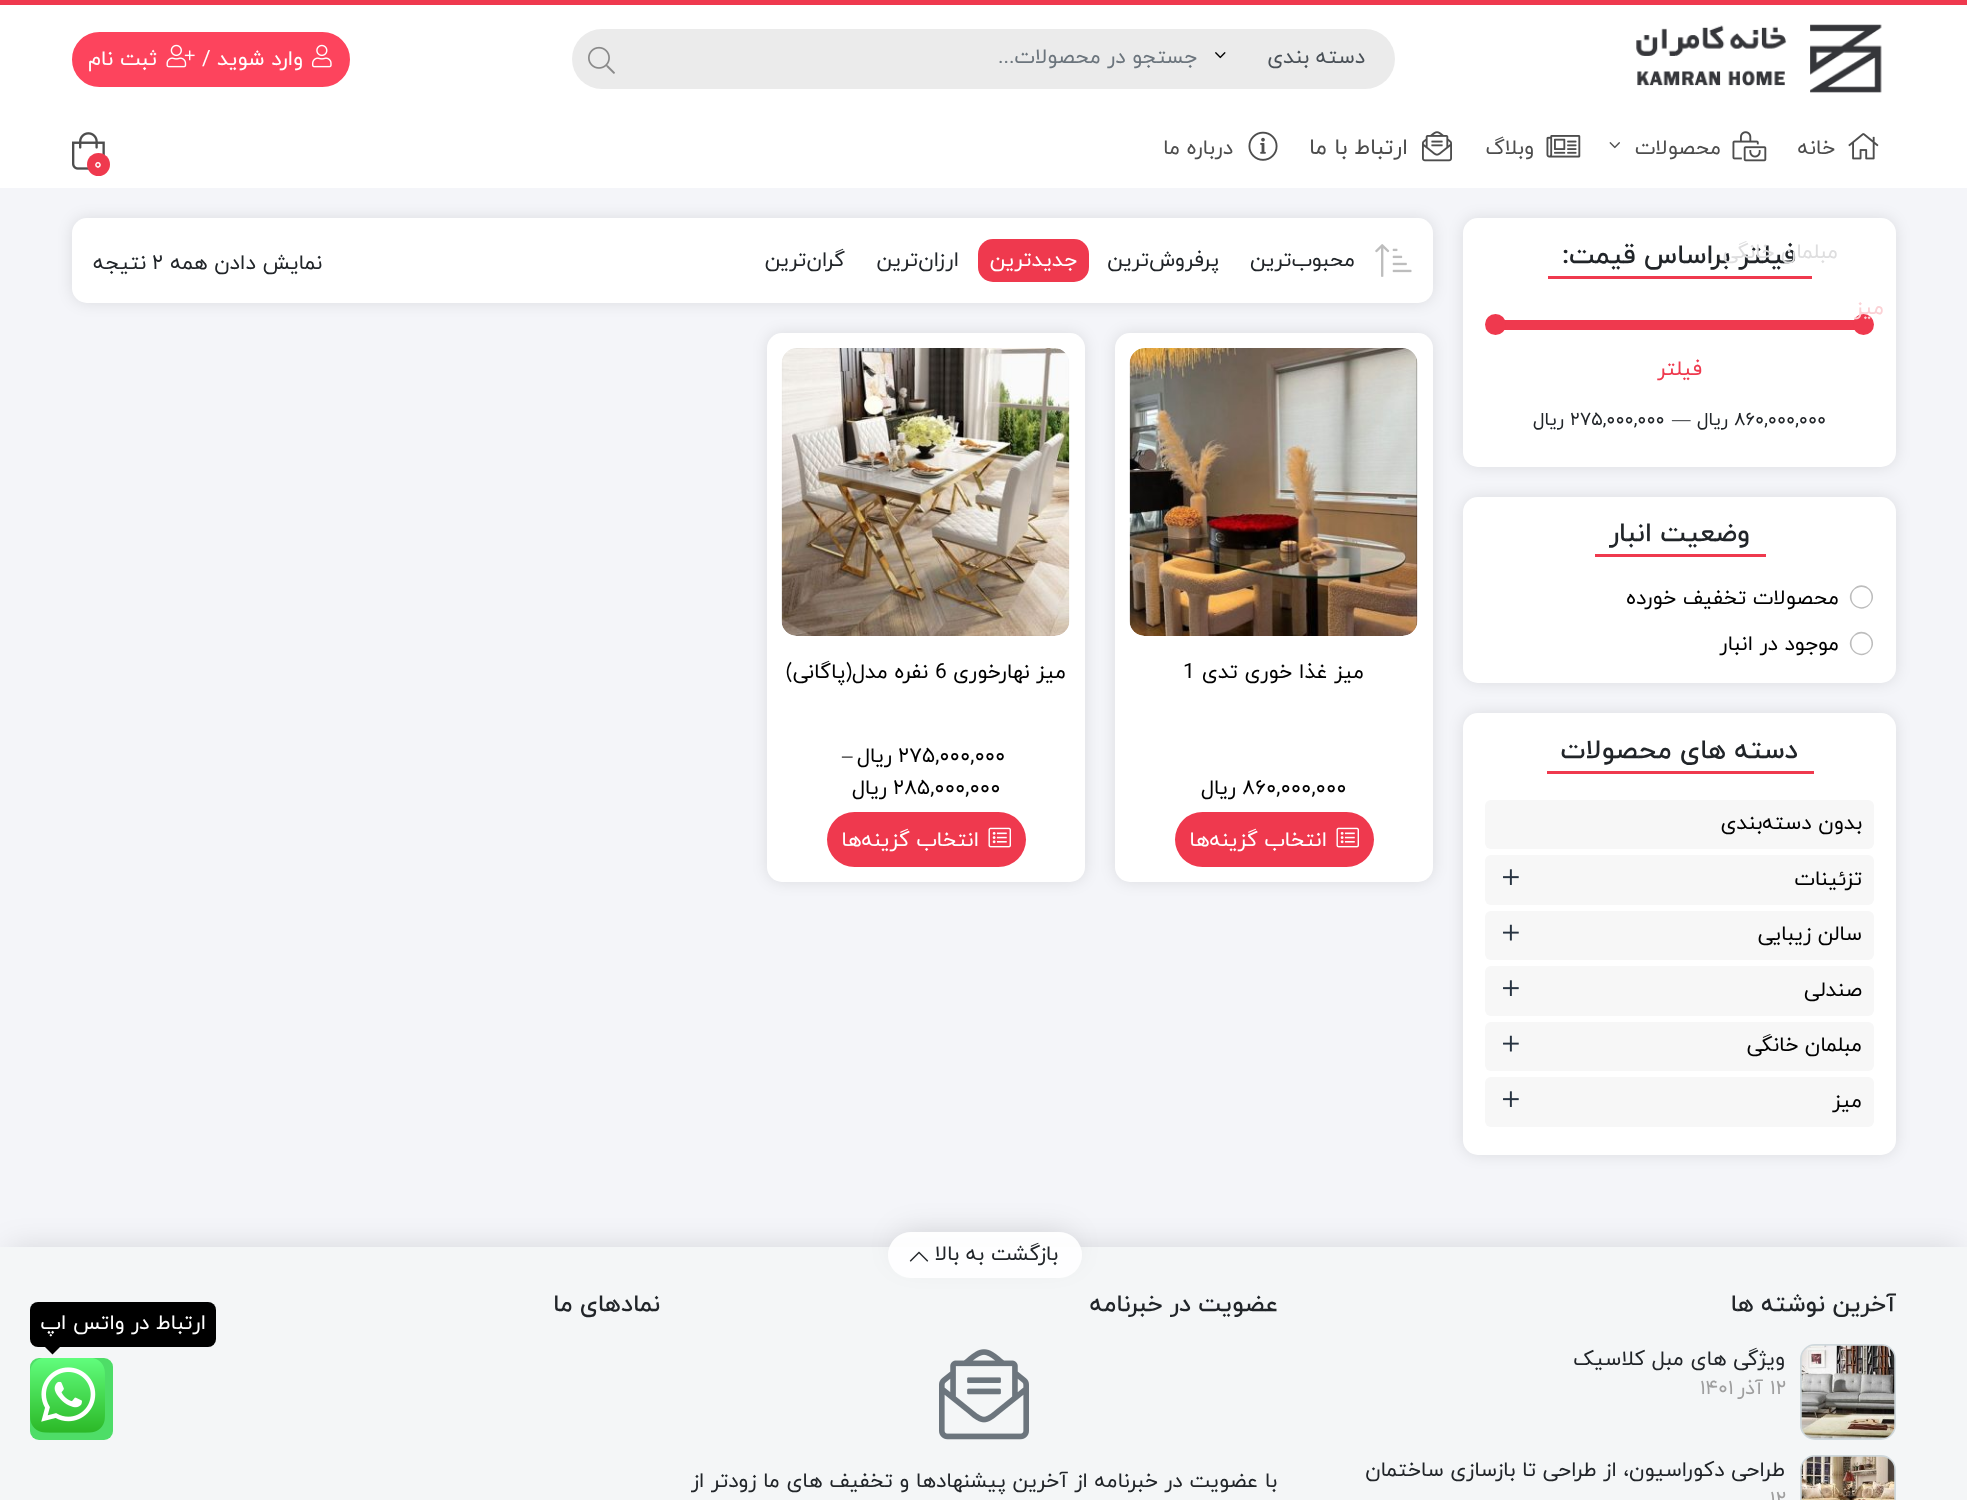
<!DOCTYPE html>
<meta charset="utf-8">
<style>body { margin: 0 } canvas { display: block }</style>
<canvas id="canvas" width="1967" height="1500"></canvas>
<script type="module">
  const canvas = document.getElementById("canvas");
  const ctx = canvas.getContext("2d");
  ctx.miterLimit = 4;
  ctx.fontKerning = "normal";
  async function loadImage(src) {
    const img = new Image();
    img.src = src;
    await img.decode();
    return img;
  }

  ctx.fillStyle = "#f4f5f9";
  ctx.fillRect(0, 0, 1967, 1500);
  ctx.fillStyle = "#ffffff";
  ctx.fillRect(0, 5, 1967, 183);
  ctx.fillStyle = "#ef394e";
  ctx.fillRect(0, 0, 1967, 5);
  ctx.drawImage(await loadImage("img1.png"), 1636, 24, 246, 69);
  ctx.fillStyle = "#ebebeb";
  ctx.beginPath();
  ctx.roundRect(1215, 29, 180, 60, [0, 30, 30, 0]);
  ctx.fill();
  ctx.direction = "rtl";
  ctx.font = "21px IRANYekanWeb";
  ctx.fillStyle = "#495057";
  ctx.fillText("دسته بندی", 1365, 63);
  ctx.drawImage(await loadImage("img2.png"), 1215, 52, 11, 7);
  ctx.fillStyle = "#ebebeb";
  ctx.fillRect(632, 29, 583, 60);
  ctx.fillStyle = "#6c757d";
  ctx.fillText("جستجو در محصولات...", 1197, 63);
  ctx.fillStyle = "#ebebeb";
  ctx.beginPath();
  ctx.roundRect(572, 29, 60, 60, [30, 0, 0, 30]);
  ctx.fill();
  ctx.drawImage(await loadImage("img3.png"), 588, 46, 27, 28);
  ctx.fillStyle = "#fd445d";
  ctx.beginPath();
  ctx.roundRect(73, 33, 276, 53, 26.5);
  ctx.fill();
  ctx.strokeStyle = "#fd445d";
  ctx.lineWidth = 2;
  ctx.stroke();
  ctx.drawImage(await loadImage("img4.png"), 312, 44, 20, 24);
  ctx.fillStyle = "#ffffff";
  ctx.fillText("وارد شوید", 303, 65);
  ctx.direction = "ltr";
  ctx.fillText("/", 202, 65);
  ctx.drawImage(await loadImage("img5.png"), 166, 44, 29, 24);
  ctx.direction = "rtl";
  ctx.fillText("ثبت نام", 157, 65);
  ctx.drawImage(await loadImage("img6.png"), 1732, 131, 35, 31);
  ctx.fillStyle = "#4d4d4d";
  ctx.fillText("محصولات", 1721, 154);
  ctx.drawImage(await loadImage("img7.png"), 1609, 142, 11, 7);
  ctx.fillStyle = "rgba(0, 0, 0, 0.1)";
  ctx.filter = "blur(7.5px)";
  ctx.beginPath();
  ctx.roundRect(1463, 218, 433, 249, 15);
  ctx.fill();
  ctx.filter = "none";
  ctx.fillStyle = "#ffffff";
  ctx.beginPath();
  ctx.roundRect(1463, 218, 433, 249, 15);
  ctx.fill();
  ctx.font = "500 27px IRANYekanWeb";
  ctx.fillStyle = "#212529";
  ctx.fillText("فیلتر براساس قیمت:", 1796, 263);
  ctx.font = "21px IRANYekanWeb";
  ctx.fillStyle = "#dededf";
  ctx.fillText("مبلمان خانگی", 1838, 258);
  ctx.fillStyle = "#ef394e";
  ctx.fillRect(1504, 320, 351, 10);
  ctx.beginPath();
  ctx.arc(1863.5, 324.5, 10.5, 0, Math.PI * 2);
  ctx.fill();
  ctx.fillStyle = "#fbd1d5";
  ctx.fillText("میز", 1884, 314);
  ctx.drawImage(await loadImage("img8.png"), 1546, 135, 35, 23);
  ctx.fillStyle = "#4d4d4d";
  ctx.fillText("وبلاگ", 1534, 154);
  ctx.drawImage(await loadImage("img9.png"), 1422, 131, 30, 31);
  ctx.font = "22.5px IRANYekanWeb";
  ctx.fillText("ارتباط با ما", 1408, 154);
  ctx.drawImage(await loadImage("img10.png"), 1248, 131, 30, 30);
  ctx.font = "21px IRANYekanWeb";
  ctx.fillText("درباره ما", 1233, 154);
  ctx.drawImage(await loadImage("img11.png"), 1848, 133, 31, 27);
  ctx.fillText("خانه", 1835, 154);
  ctx.drawImage(await loadImage("img12.png"), 72, 132, 33, 38);
  ctx.fillStyle = "#ef394e";
  ctx.beginPath();
  ctx.arc(98.5, 164.5, 11.5, 0, Math.PI * 2);
  ctx.fill();
  ctx.direction = "ltr";
  ctx.font = "16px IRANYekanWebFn";
  ctx.fillStyle = "#ffffff";
  ctx.fillText("0", 94, 169);
  ctx.fillStyle = "#ef394e";
  ctx.fillRect(1548, 276, 264, 3);
  ctx.beginPath();
  ctx.arc(1495.5, 324.5, 10.5, 0, Math.PI * 2);
  ctx.fill();
  ctx.direction = "rtl";
  ctx.font = "21px IRANYekanWeb";
  ctx.fillText("فیلتر", 1702, 375);
  ctx.direction = "ltr";
  ctx.font = "18.5px IRANYekanWebFn";
  ctx.fillStyle = "#212529";
  ctx.fillText("860,000,000", 1734, 425);
  ctx.direction = "rtl";
  ctx.fillText("ریال", 1728, 425);
  ctx.direction = "ltr";
  ctx.font = "18.5px Liberation Serif";
  ctx.fillText("—", 1672, 425);
  ctx.font = "18.5px IRANYekanWebFn";
  ctx.fillText("275,000,000", 1570, 425);
  ctx.direction = "rtl";
  ctx.fillText("ریال", 1564, 425);
  ctx.fillStyle = "rgba(0, 0, 0, 0.1)";
  ctx.filter = "blur(7.5px)";
  ctx.beginPath();
  ctx.roundRect(1463, 497, 433, 186, 15);
  ctx.fill();
  ctx.filter = "none";
  ctx.fillStyle = "#ffffff";
  ctx.beginPath();
  ctx.roundRect(1463, 497, 433, 186, 15);
  ctx.fill();
  ctx.fillStyle = "#ef394e";
  ctx.fillRect(1595, 554, 171, 3);
  ctx.font = "500 27px IRANYekanWeb";
  ctx.fillStyle = "#212529";
  ctx.fillText("وضعیت انبار", 1750, 541);
  ctx.fillStyle = "#bdbdbd";
  ctx.beginPath();
  ctx.moveTo(1853.5, 589);
  ctx.bezierCurveTo(1864, 578, 1880.5, 594.5, 1869.5, 605);
  ctx.bezierCurveTo(1859, 616, 1842.5, 599.5, 1853.5, 589);
  ctx.closePath();
  ctx.moveTo(1871.5, 597);
  ctx.bezierCurveTo(1871.5, 583.5, 1851.5, 583.5, 1851.5, 597);
  ctx.bezierCurveTo(1851.5, 610.5, 1871.5, 610.5, 1871.5, 597);
  ctx.closePath();
  ctx.fill();
  ctx.font = "21px IRANYekanWeb";
  ctx.fillStyle = "#000000";
  ctx.fillText("محصولات تخفیف خورده", 1839, 604);
  ctx.fillStyle = "#bdbdbd";
  ctx.beginPath();
  ctx.moveTo(1853.5, 635.5);
  ctx.bezierCurveTo(1864, 624.5, 1880.5, 641, 1869.5, 651.5);
  ctx.bezierCurveTo(1859, 662.5, 1842.5, 646, 1853.5, 635.5);
  ctx.closePath();
  ctx.moveTo(1871.5, 643.5);
  ctx.bezierCurveTo(1871.5, 630, 1851.5, 630, 1851.5, 643.5);
  ctx.bezierCurveTo(1851.5, 657, 1871.5, 657, 1871.5, 643.5);
  ctx.closePath();
  ctx.fill();
  ctx.fillStyle = "#000000";
  ctx.fillText("موجود در انبار", 1839, 650);
  ctx.fillStyle = "rgba(0, 0, 0, 0.1)";
  ctx.filter = "blur(7.5px)";
  ctx.beginPath();
  ctx.roundRect(1463, 713, 433, 442, 15);
  ctx.fill();
  ctx.filter = "none";
  ctx.fillStyle = "#ffffff";
  ctx.beginPath();
  ctx.roundRect(1463, 713, 433, 442, 15);
  ctx.fill();
  ctx.fillStyle = "#ef394e";
  ctx.fillRect(1547, 771, 267, 3);
  ctx.font = "500 27px IRANYekanWeb";
  ctx.fillStyle = "#212529";
  ctx.fillText("دسته های محصولات", 1798, 758);
  ctx.fillStyle = "#f7f7f7";
  ctx.beginPath();
  ctx.roundRect(1485, 800, 389, 49, 6);
  ctx.fill();
  ctx.font = "21px IRANYekanWeb";
  ctx.fillStyle = "#000000";
  ctx.fillText("بدون دسته‌بندی", 1862, 829);
  ctx.fillStyle = "#f7f7f7";
  ctx.beginPath();
  ctx.roundRect(1485, 855, 389, 50, 6);
  ctx.fill();
  ctx.fillStyle = "#000000";
  ctx.fillText("تزئینات", 1862, 885);
  ctx.drawImage(await loadImage("img13.png"), 1503, 869, 16, 16);
  ctx.fillStyle = "#f7f7f7";
  ctx.beginPath();
  ctx.roundRect(1485, 911, 389, 49, 6);
  ctx.fill();
  ctx.fillStyle = "#000000";
  ctx.fillText("سالن زیبایی", 1862, 940);
  ctx.drawImage(await loadImage("img14.png"), 1503, 924, 16, 17);
  ctx.fillStyle = "#f7f7f7";
  ctx.beginPath();
  ctx.roundRect(1485, 966, 389, 50, 6);
  ctx.fill();
  ctx.fillStyle = "#000000";
  ctx.fillText("صندلی", 1862, 996);
  ctx.drawImage(await loadImage("img13.png"), 1503, 980, 16, 16);
  ctx.fillStyle = "#f7f7f7";
  ctx.beginPath();
  ctx.roundRect(1485, 1022, 389, 49, 6);
  ctx.fill();
  ctx.fillStyle = "#000000";
  ctx.fillText("مبلمان خانگی", 1862, 1051);
  ctx.drawImage(await loadImage("img14.png"), 1503, 1035, 16, 17);
  ctx.fillStyle = "#f7f7f7";
  ctx.beginPath();
  ctx.roundRect(1485, 1077, 389, 50, 6);
  ctx.fill();
  ctx.fillStyle = "#000000";
  ctx.fillText("میز", 1862, 1107);
  ctx.drawImage(await loadImage("img13.png"), 1503, 1091, 16, 16);
  ctx.fillStyle = "rgba(0, 0, 0, 0.1)";
  ctx.filter = "blur(7.5px)";
  ctx.beginPath();
  ctx.roundRect(72, 218, 1361, 85, 15);
  ctx.fill();
  ctx.filter = "none";
  ctx.fillStyle = "#ffffff";
  ctx.beginPath();
  ctx.roundRect(72, 218, 1361, 85, 15);
  ctx.fill();
  ctx.drawImage(await loadImage("img15.png"), 1375, 244, 37, 33);
  ctx.fillStyle = "#212529";
  ctx.fillText("محبوب‌ترین", 1355, 266);
  ctx.fillText("پرفروش‌ترین", 1219, 266);
  ctx.fillStyle = "#ef394e";
  ctx.beginPath();
  ctx.roundRect(978, 239, 111, 43, 15);
  ctx.fill();
  ctx.fillStyle = "#ffffff";
  ctx.fillText("جدیدترین", 1077, 266);
  ctx.fillStyle = "#212529";
  ctx.fillText("ارزان‌ترین", 959, 266);
  ctx.fillText("گران‌ترین", 845, 266);
  ctx.font = "21px IRANYekanWebFn";
  ctx.fillText("نمایش دادن همه", 322, 269);
  ctx.direction = "ltr";
  ctx.fillText("2", 152, 269);
  ctx.direction = "rtl";
  ctx.fillText("نتیجه", 146, 269);
  ctx.fillStyle = "rgba(0, 0, 0, 0.1)";
  ctx.filter = "blur(7.5px)";
  ctx.beginPath();
  ctx.roundRect(1115, 333, 318, 549, 15);
  ctx.fill();
  ctx.filter = "none";
  ctx.fillStyle = "#ffffff";
  ctx.beginPath();
  ctx.roundRect(1115, 333, 318, 549, 15);
  ctx.fill();
  ctx.drawImage(await loadImage("img16.png"), 1129, 348, 289, 288);
  ctx.font = "21px IRANYekanWeb";
  ctx.fillStyle = "#000000";
  ctx.fillText("میز غذا خوری تدی", 1364, 678);
  ctx.direction = "ltr";
  ctx.fillText("1", 1183, 678);
  ctx.font = "21px IRANYekanWebFn";
  ctx.fillText("860,000,000", 1242, 794);
  ctx.direction = "rtl";
  ctx.fillText("ریال", 1236, 794);
  ctx.fillStyle = "#ef394e";
  ctx.beginPath();
  ctx.roundRect(1175, 812, 199, 55, 27.5);
  ctx.fill();
  ctx.drawImage(await loadImage("img17.png"), 1336, 827, 23, 21);
  ctx.font = "21px IRANYekanWeb";
  ctx.fillStyle = "#ffffff";
  ctx.fillText("انتخاب گزینه‌ها", 1327, 846);
  ctx.fillStyle = "rgba(0, 0, 0, 0.1)";
  ctx.filter = "blur(7.5px)";
  ctx.beginPath();
  ctx.roundRect(767, 333, 318, 549, 15);
  ctx.fill();
  ctx.filter = "none";
  ctx.fillStyle = "#ffffff";
  ctx.beginPath();
  ctx.roundRect(767, 333, 318, 549, 15);
  ctx.fill();
  ctx.drawImage(await loadImage("img18.png"), 781, 348, 289, 288);
  ctx.fillStyle = "#000000";
  ctx.fillText("میز نهارخوری", 1066, 678);
  ctx.direction = "ltr";
  ctx.fillText("6", 935, 678);
  ctx.direction = "rtl";
  ctx.fillText("نفره مدل(پاگانی)", 928, 678);
  ctx.direction = "ltr";
  ctx.font = "21px IRANYekanWebFn";
  ctx.fillText("275,000,000", 898, 762);
  ctx.direction = "rtl";
  ctx.fillText("ریال", 892, 762);
  ctx.direction = "ltr";
  ctx.font = "21px Liberation Serif";
  ctx.fillText("–", 842, 762);
  ctx.font = "21px IRANYekanWebFn";
  ctx.fillText("285,000,000", 893, 794);
  ctx.direction = "rtl";
  ctx.fillText("ریال", 887, 794);
  ctx.fillStyle = "#ef394e";
  ctx.beginPath();
  ctx.roundRect(827, 812, 199, 55, 27.5);
  ctx.fill();
  ctx.drawImage(await loadImage("img17.png"), 988, 827, 23, 21);
  ctx.font = "21px IRANYekanWeb";
  ctx.fillStyle = "#ffffff";
  ctx.fillText("انتخاب گزینه‌ها", 979, 846);
  ctx.fillStyle = "rgba(0, 0, 0, 0.12)";
  ctx.filter = "blur(15px)";
  ctx.beginPath();
  ctx.rect(9, 1247, 1950, 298);
  ctx.fill();
  ctx.filter = "none";
  ctx.fillStyle = "#f4f6f7";
  ctx.fillRect(0, 1247, 1967, 253);
  ctx.save();
  ctx.beginPath();
  ctx.moveTo(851, 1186);
  ctx.lineTo(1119, 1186);
  ctx.lineTo(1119, 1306);
  ctx.lineTo(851, 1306);
  ctx.closePath();
  ctx.moveTo(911, 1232);
  ctx.lineTo(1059, 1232);
  ctx.bezierCurveTo(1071.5, 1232, 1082, 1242.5, 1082, 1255);
  ctx.bezierCurveTo(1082, 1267.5, 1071.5, 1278, 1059, 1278);
  ctx.lineTo(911, 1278);
  ctx.bezierCurveTo(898.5, 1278, 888, 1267.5, 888, 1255);
  ctx.bezierCurveTo(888, 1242.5, 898.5, 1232, 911, 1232);
  ctx.closePath();
  ctx.clip("evenodd");
  ctx.fillStyle = "rgba(0, 0, 0, 0.12)";
  ctx.filter = "blur(15px)";
  ctx.beginPath();
  ctx.roundRect(897, 1232, 176, 28, 14);
  ctx.fill();
  ctx.filter = "none";
  ctx.restore();
  ctx.fillStyle = "rgba(255, 255, 255, 0.9)";
  ctx.beginPath();
  ctx.roundRect(888, 1232, 194, 46, 23);
  ctx.fill();
  ctx.fillStyle = "#212529";
  ctx.fillText("بازگشت به بالا", 1058, 1260);
  ctx.drawImage(await loadImage("img19.png"), 909, 1251, 20, 11);
  ctx.font = "500 24px IRANYekanWeb";
  ctx.fillText("آخرین نوشته ها", 1896, 1311);
  ctx.beginPath();
  ctx.roundRect(1801, 1345, 94, 94, 14);
  ctx.strokeStyle = "#cfd8dc";
  ctx.stroke();
  ctx.drawImage(await loadImage("img20.png"), 1801, 1345, 94, 94);
  ctx.font = "21px IRANYekanWeb";
  ctx.fillText("ویژگی های مبل کلاسیک", 1785, 1365);
  ctx.direction = "ltr";
  ctx.font = "20px IRANYekanWebFn";
  ctx.fillStyle = "#9e9e9e";
  ctx.fillText("12", 1770, 1394);
  ctx.direction = "rtl";
  ctx.fillText("آذر", 1763, 1394);
  ctx.direction = "ltr";
  ctx.fillText("1401", 1700, 1394);
  ctx.beginPath();
  ctx.roundRect(1801, 1456, 94, 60, 14);
  ctx.stroke();
  ctx.drawImage(await loadImage("img21.png"), 1801, 1456, 94, 44);
  ctx.direction = "rtl";
  ctx.font = "21px IRANYekanWeb";
  ctx.fillStyle = "#212529";
  ctx.fillText("طراحی دکوراسیون، از طراحی تا بازسازی ساختمان", 1785, 1476);
  ctx.direction = "ltr";
  ctx.font = "20px IRANYekanWebFn";
  ctx.fillStyle = "#9e9e9e";
  ctx.fillText("12", 1770, 1505);
  ctx.direction = "rtl";
  ctx.font = "500 24px IRANYekanWeb";
  ctx.fillStyle = "#212529";
  ctx.fillText("عضویت در خبرنامه", 1278, 1311);
  ctx.drawImage(await loadImage("img22.png"), 939, 1349, 90, 91);
  ctx.font = "21px IRANYekanWeb";
  ctx.fillText("با عضویت در خبرنامه از آخرین پیشنهادها و تخفیف های ما زودتر از", 1277, 1487);
  ctx.font = "500 24px IRANYekanWeb";
  ctx.fillText("نمادهای ما", 660, 1311);
  ctx.fillStyle = "#000000";
  ctx.beginPath();
  ctx.roundRect(30, 1302, 186, 45, 8);
  ctx.fill();
  ctx.font = "21px IRANYekanWebFn";
  ctx.fillStyle = "#ffffff";
  ctx.fillText("ارتباط در واتس اپ", 206, 1329);
  ctx.fillStyle = "#000000";
  ctx.beginPath();
  ctx.moveTo(45, 1347);
  ctx.lineTo(60, 1347);
  ctx.lineTo(52.5, 1354.5);
  ctx.closePath();
  ctx.fill();
  ctx.fillStyle = "#4edd67";
  ctx.beginPath();
  ctx.roundRect(30, 1358, 83, 82, 9);
  ctx.fill();
  ctx.drawImage(await loadImage("img23.png"), 30, 1358, 75, 75);
</script>
